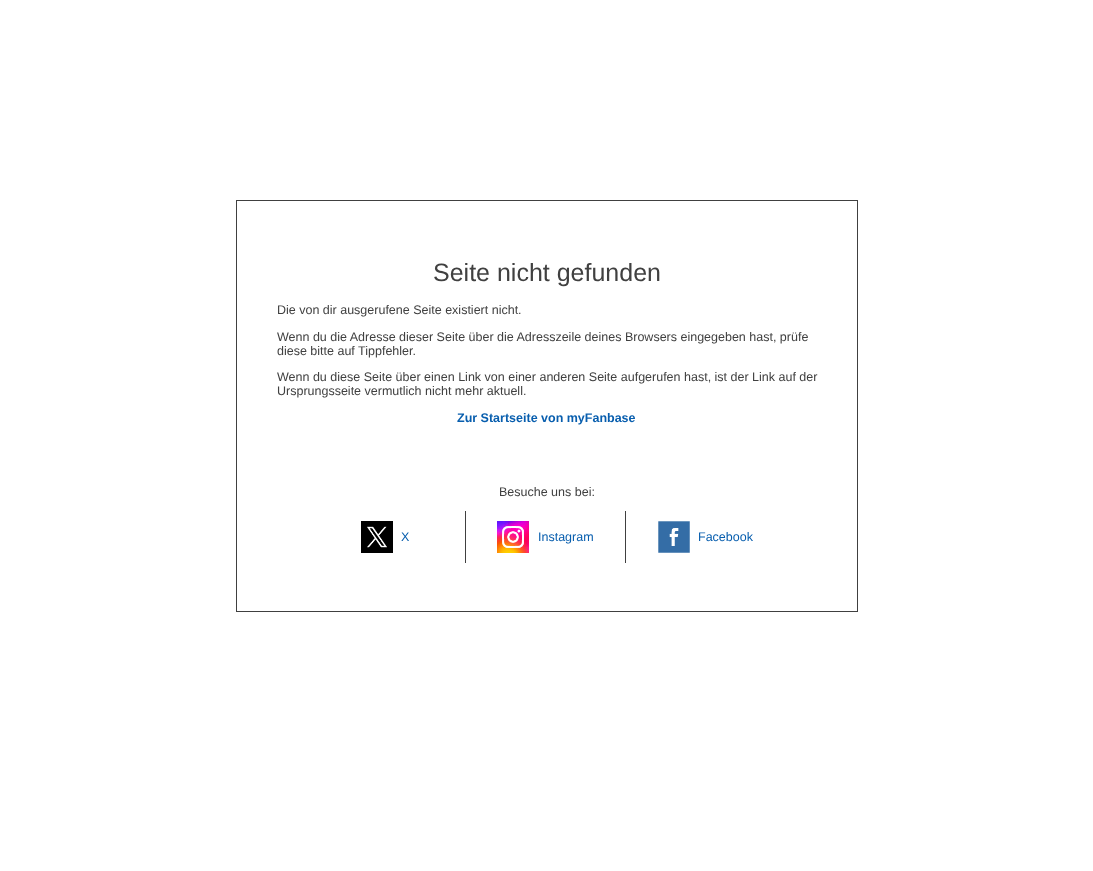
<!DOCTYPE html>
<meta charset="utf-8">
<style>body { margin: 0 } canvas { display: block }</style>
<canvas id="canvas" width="1093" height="871"></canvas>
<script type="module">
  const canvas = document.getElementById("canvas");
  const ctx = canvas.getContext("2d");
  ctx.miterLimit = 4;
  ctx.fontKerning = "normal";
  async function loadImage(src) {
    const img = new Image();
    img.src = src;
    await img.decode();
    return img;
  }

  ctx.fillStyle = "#ffffff";
  ctx.fillRect(0, 0, 1093, 871);
  ctx.strokeStyle = "#404040";
  ctx.strokeRect(236.5, 200.5, 621, 411);
  ctx.font = "25px Liberation Sans";
  ctx.fillStyle = "#404040";
  ctx.fillText("Seite nicht gefunden", 433, 281);
  ctx.font = "12.5px Liberation Sans";
  ctx.fillText("Die von dir ausgerufene Seite existiert nicht.", 277, 314);
  ctx.fillText("Wenn du die Adresse dieser Seite über die Adresszeile deines Browsers eingegeben hast, prüfe", 277, 341);
  ctx.fillText("diese bitte auf Tippfehler.", 277, 355);
  ctx.fillText("Wenn du diese Seite über einen Link von einer anderen Seite aufgerufen hast, ist der Link auf der", 277, 381);
  ctx.fillText("Ursprungsseite vermutlich nicht mehr aktuell.", 277, 395);
  ctx.font = "bold 12.5px Liberation Sans";
  ctx.fillStyle = "#085eae";
  ctx.fillText("Zur Startseite von myFanbase", 457, 422);
  ctx.font = "12.5px Liberation Sans";
  ctx.fillStyle = "#404040";
  ctx.fillText("Besuche uns bei:", 499, 496);
  ctx.fillRect(465, 511, 1, 52);
  ctx.drawImage(await loadImage("img1.png"), 361, 521, 32, 32);
  ctx.fillStyle = "#085eae";
  ctx.fillText("X", 401, 541);
  ctx.fillStyle = "#404040";
  ctx.fillRect(625, 511, 1, 52);
  ctx.drawImage(await loadImage("img2.png"), 497, 521, 32, 32);
  ctx.fillStyle = "#085eae";
  ctx.fillText("Instagram", 538, 541);
  ctx.drawImage(await loadImage("img3.png"), 658, 521, 32, 32);
  ctx.fillText("Facebook", 698, 541);
</script>
